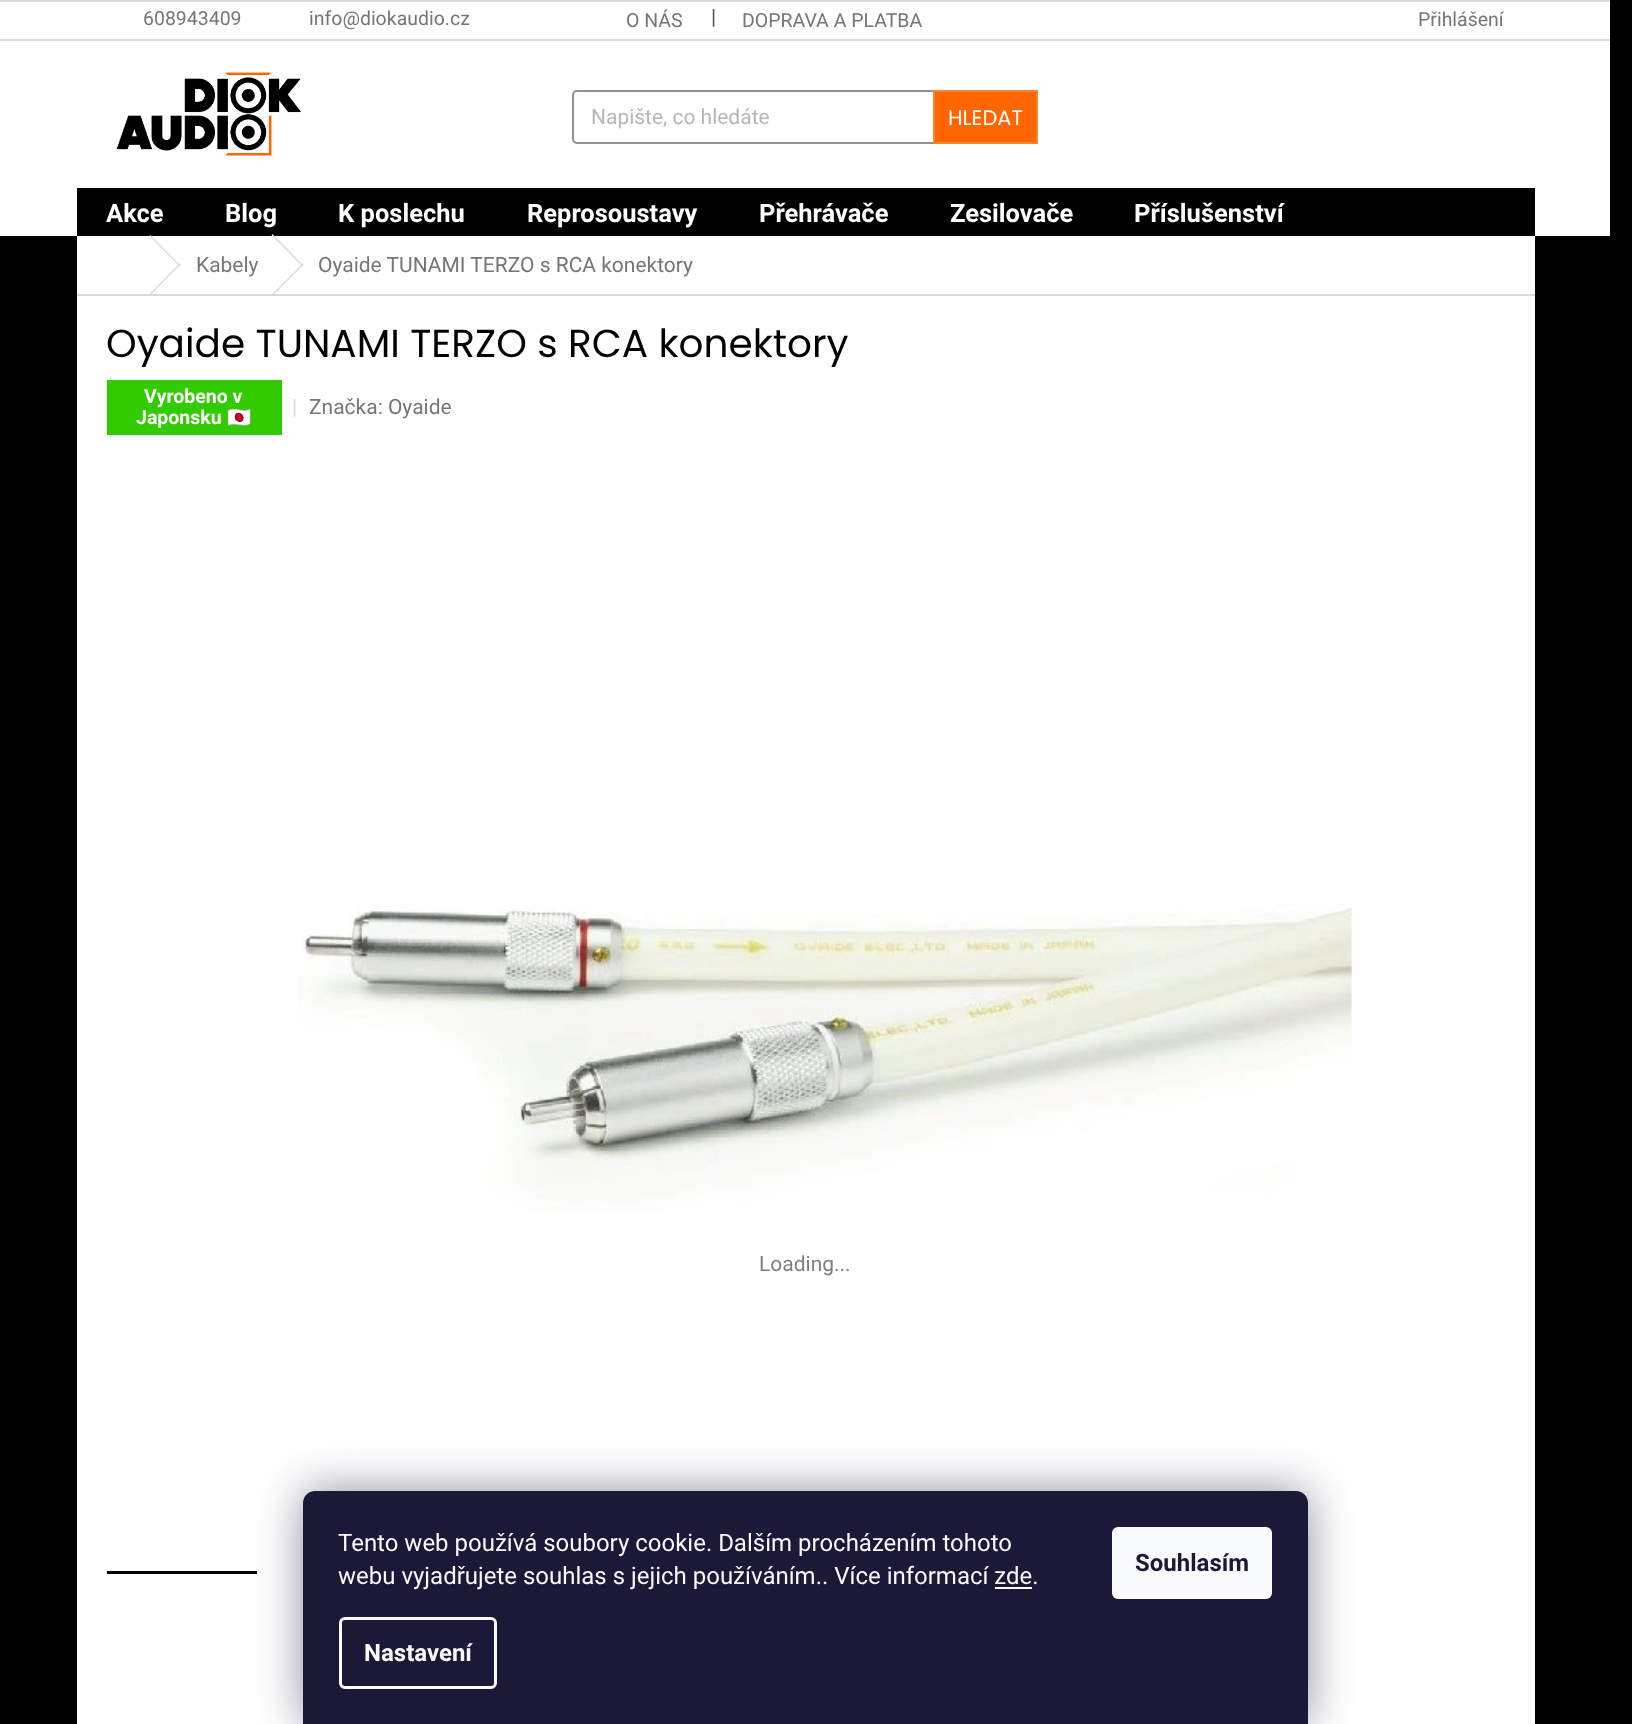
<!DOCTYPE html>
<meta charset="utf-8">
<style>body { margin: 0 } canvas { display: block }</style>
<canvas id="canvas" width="1632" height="1724"></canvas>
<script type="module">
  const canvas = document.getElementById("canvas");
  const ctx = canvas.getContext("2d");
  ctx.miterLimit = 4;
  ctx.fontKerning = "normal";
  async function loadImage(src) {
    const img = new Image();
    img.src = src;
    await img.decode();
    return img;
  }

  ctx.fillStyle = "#000000";
  ctx.fillRect(0, 0, 1632, 1724);
  ctx.fillStyle = "#ffffff";
  ctx.fillRect(0, 2, 1610, 37);
  ctx.fillStyle = "#dadada";
  ctx.fillRect(0, 0, 1610, 2);
  ctx.fillRect(0, 39, 1610, 2);
  ctx.font = "19.5px Roboto";
  ctx.fillStyle = "#767676";
  ctx.fillText("608943409", 143, 25);
  ctx.fillText("info@diokaudio.cz", 309, 25);
  ctx.fillText("O NÁS", 626, 27);
  ctx.font = "21px Roboto";
  ctx.fillStyle = "#4d4d4d";
  ctx.fillText("|", 711, 24);
  ctx.font = "19.5px Roboto";
  ctx.fillStyle = "#767676";
  ctx.fillText("DOPRAVA A PLATBA", 742, 27);
  ctx.fillText("Přihlášení", 1418, 26);
  ctx.fillStyle = "#ffffff";
  ctx.fillRect(0, 41, 1610, 195);
  ctx.drawImage(await loadImage("img1.png"), 116, 72, 186, 84);
  ctx.beginPath();
  ctx.roundRect(573, 91, 464, 52, 4);
  ctx.strokeStyle = "#919191";
  ctx.lineWidth = 2;
  ctx.stroke();
  ctx.font = "21px Roboto";
  ctx.fillStyle = "#b6b6b6";
  ctx.fillText("Napište, co hledáte", 591, 124);
  ctx.fillStyle = "#ff6600";
  ctx.beginPath();
  ctx.rect(934, 91, 103, 52);
  ctx.fill();
  ctx.strokeStyle = "#ed8a2d";
  ctx.stroke();
  ctx.font = "21px Poppins";
  ctx.fillStyle = "#ffffff";
  ctx.fillText("HLEDAT", 948, 125);
  ctx.fillStyle = "#000000";
  ctx.fillRect(77, 188, 1458, 48);
  ctx.font = "bold 25.5px Roboto";
  ctx.fillStyle = "#ffffff";
  ctx.fillText("Akce", 106, 222);
  ctx.fillText("Blog", 225, 222);
  ctx.fillText("K poslechu", 338, 222);
  ctx.fillText("Reprosoustavy", 527, 222);
  ctx.fillText("Přehrávače", 759, 222);
  ctx.fillText("Zesilovače", 950, 222);
  ctx.fillText("Příslušenství", 1134, 222);
  ctx.fillRect(77, 236, 1458, 58);
  ctx.fillStyle = "#dadada";
  ctx.fillRect(77, 294, 1458, 2);
  ctx.beginPath();
  ctx.moveTo(149.5, 236);
  ctx.lineTo(150.5, 235);
  ctx.lineTo(180.5, 265.5);
  ctx.lineTo(179.5, 266.5);
  ctx.closePath();
  ctx.fill();
  ctx.beginPath();
  ctx.moveTo(179.5, 263.5);
  ctx.lineTo(180.5, 264.5);
  ctx.lineTo(150.5, 295);
  ctx.lineTo(149.5, 294);
  ctx.closePath();
  ctx.fill();
  ctx.font = "21px Roboto";
  ctx.fillStyle = "#767676";
  ctx.fillText("Kabely", 196, 272);
  ctx.fillStyle = "#dadada";
  ctx.beginPath();
  ctx.moveTo(271.5, 235);
  ctx.lineTo(272.5, 234);
  ctx.lineTo(303.5, 265.5);
  ctx.lineTo(302.5, 266.5);
  ctx.closePath();
  ctx.fill();
  ctx.beginPath();
  ctx.moveTo(302.5, 263.5);
  ctx.lineTo(303.5, 264.5);
  ctx.lineTo(272.5, 296);
  ctx.lineTo(271.5, 295);
  ctx.closePath();
  ctx.fill();
  ctx.fillStyle = "#767676";
  ctx.fillText("Oyaide TUNAMI TERZO s RCA konektory", 318, 272);
  ctx.fillStyle = "#ffffff";
  ctx.fillRect(77, 296, 1458, 1428);
  ctx.font = "39px Poppins";
  ctx.fillStyle = "#000000";
  ctx.fillText("Oyaide TUNAMI TERZO s RCA konektory", 106, 357);
  ctx.fillStyle = "#32cb00";
  ctx.fillRect(107, 380, 175, 55);
  ctx.font = "bold 19.5px Roboto";
  ctx.fillStyle = "#ffffff";
  ctx.fillText("Vyrobeno v", 144, 403);
  ctx.fillText("Japonsku", 136, 424);
  ctx.font = "bold 19.5px Noto Color Emoji";
  ctx.fillText("🇯🇵", 227, 424);
  ctx.font = "21px Roboto";
  ctx.fillStyle = "#dadada";
  ctx.fillText("|", 292, 414);
  ctx.fillStyle = "#767676";
  ctx.fillText("Značka: Oyaide", 309, 414);
  ctx.drawImage(await loadImage("img2.png"), 297, 903, 1056, 309);
  ctx.fillStyle = "#808080";
  ctx.fillText("Loading...", 759, 1271);
  ctx.fillStyle = "#000000";
  ctx.fillRect(107, 1571, 150, 3);
  ctx.fillStyle = "rgba(27, 25, 57, 0.5)";
  ctx.filter = "blur(22.5px)";
  ctx.beginPath();
  ctx.roundRect(303, 1491, 1005, 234, 12);
  ctx.fill();
  ctx.filter = "none";
  ctx.fillStyle = "#1a1937";
  ctx.beginPath();
  ctx.moveTo(315, 1491);
  ctx.lineTo(1296, 1491);
  ctx.bezierCurveTo(1302.5, 1491, 1308, 1496.5, 1308, 1503);
  ctx.lineTo(1308, 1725);
  ctx.lineTo(303, 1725);
  ctx.lineTo(303, 1503);
  ctx.bezierCurveTo(303, 1496.5, 308.5, 1491, 315, 1491);
  ctx.closePath();
  ctx.fill();
  ctx.font = "24px Roboto";
  ctx.fillStyle = "#f8fafb";
  ctx.fillText("Tento web používá soubory cookie. Dalším procházením tohoto", 338, 1551);
  ctx.fillText("webu vyjadřujete souhlas s jejich používáním.. Více informací zde.", 338, 1584);
  ctx.fillRect(995, 1587, 37, 2);
  ctx.beginPath();
  ctx.roundRect(340.5, 1618.5, 155, 69, 4.5);
  ctx.strokeStyle = "#f8fafb";
  ctx.lineWidth = 3;
  ctx.stroke();
  ctx.font = "bold 24px Roboto";
  ctx.fillText("Nastavení", 364, 1661);
  ctx.beginPath();
  ctx.roundRect(1112, 1527, 160, 72, 6);
  ctx.fill();
  ctx.fillStyle = "#1a1937";
  ctx.fillText("Souhlasím", 1135, 1571);
</script>
